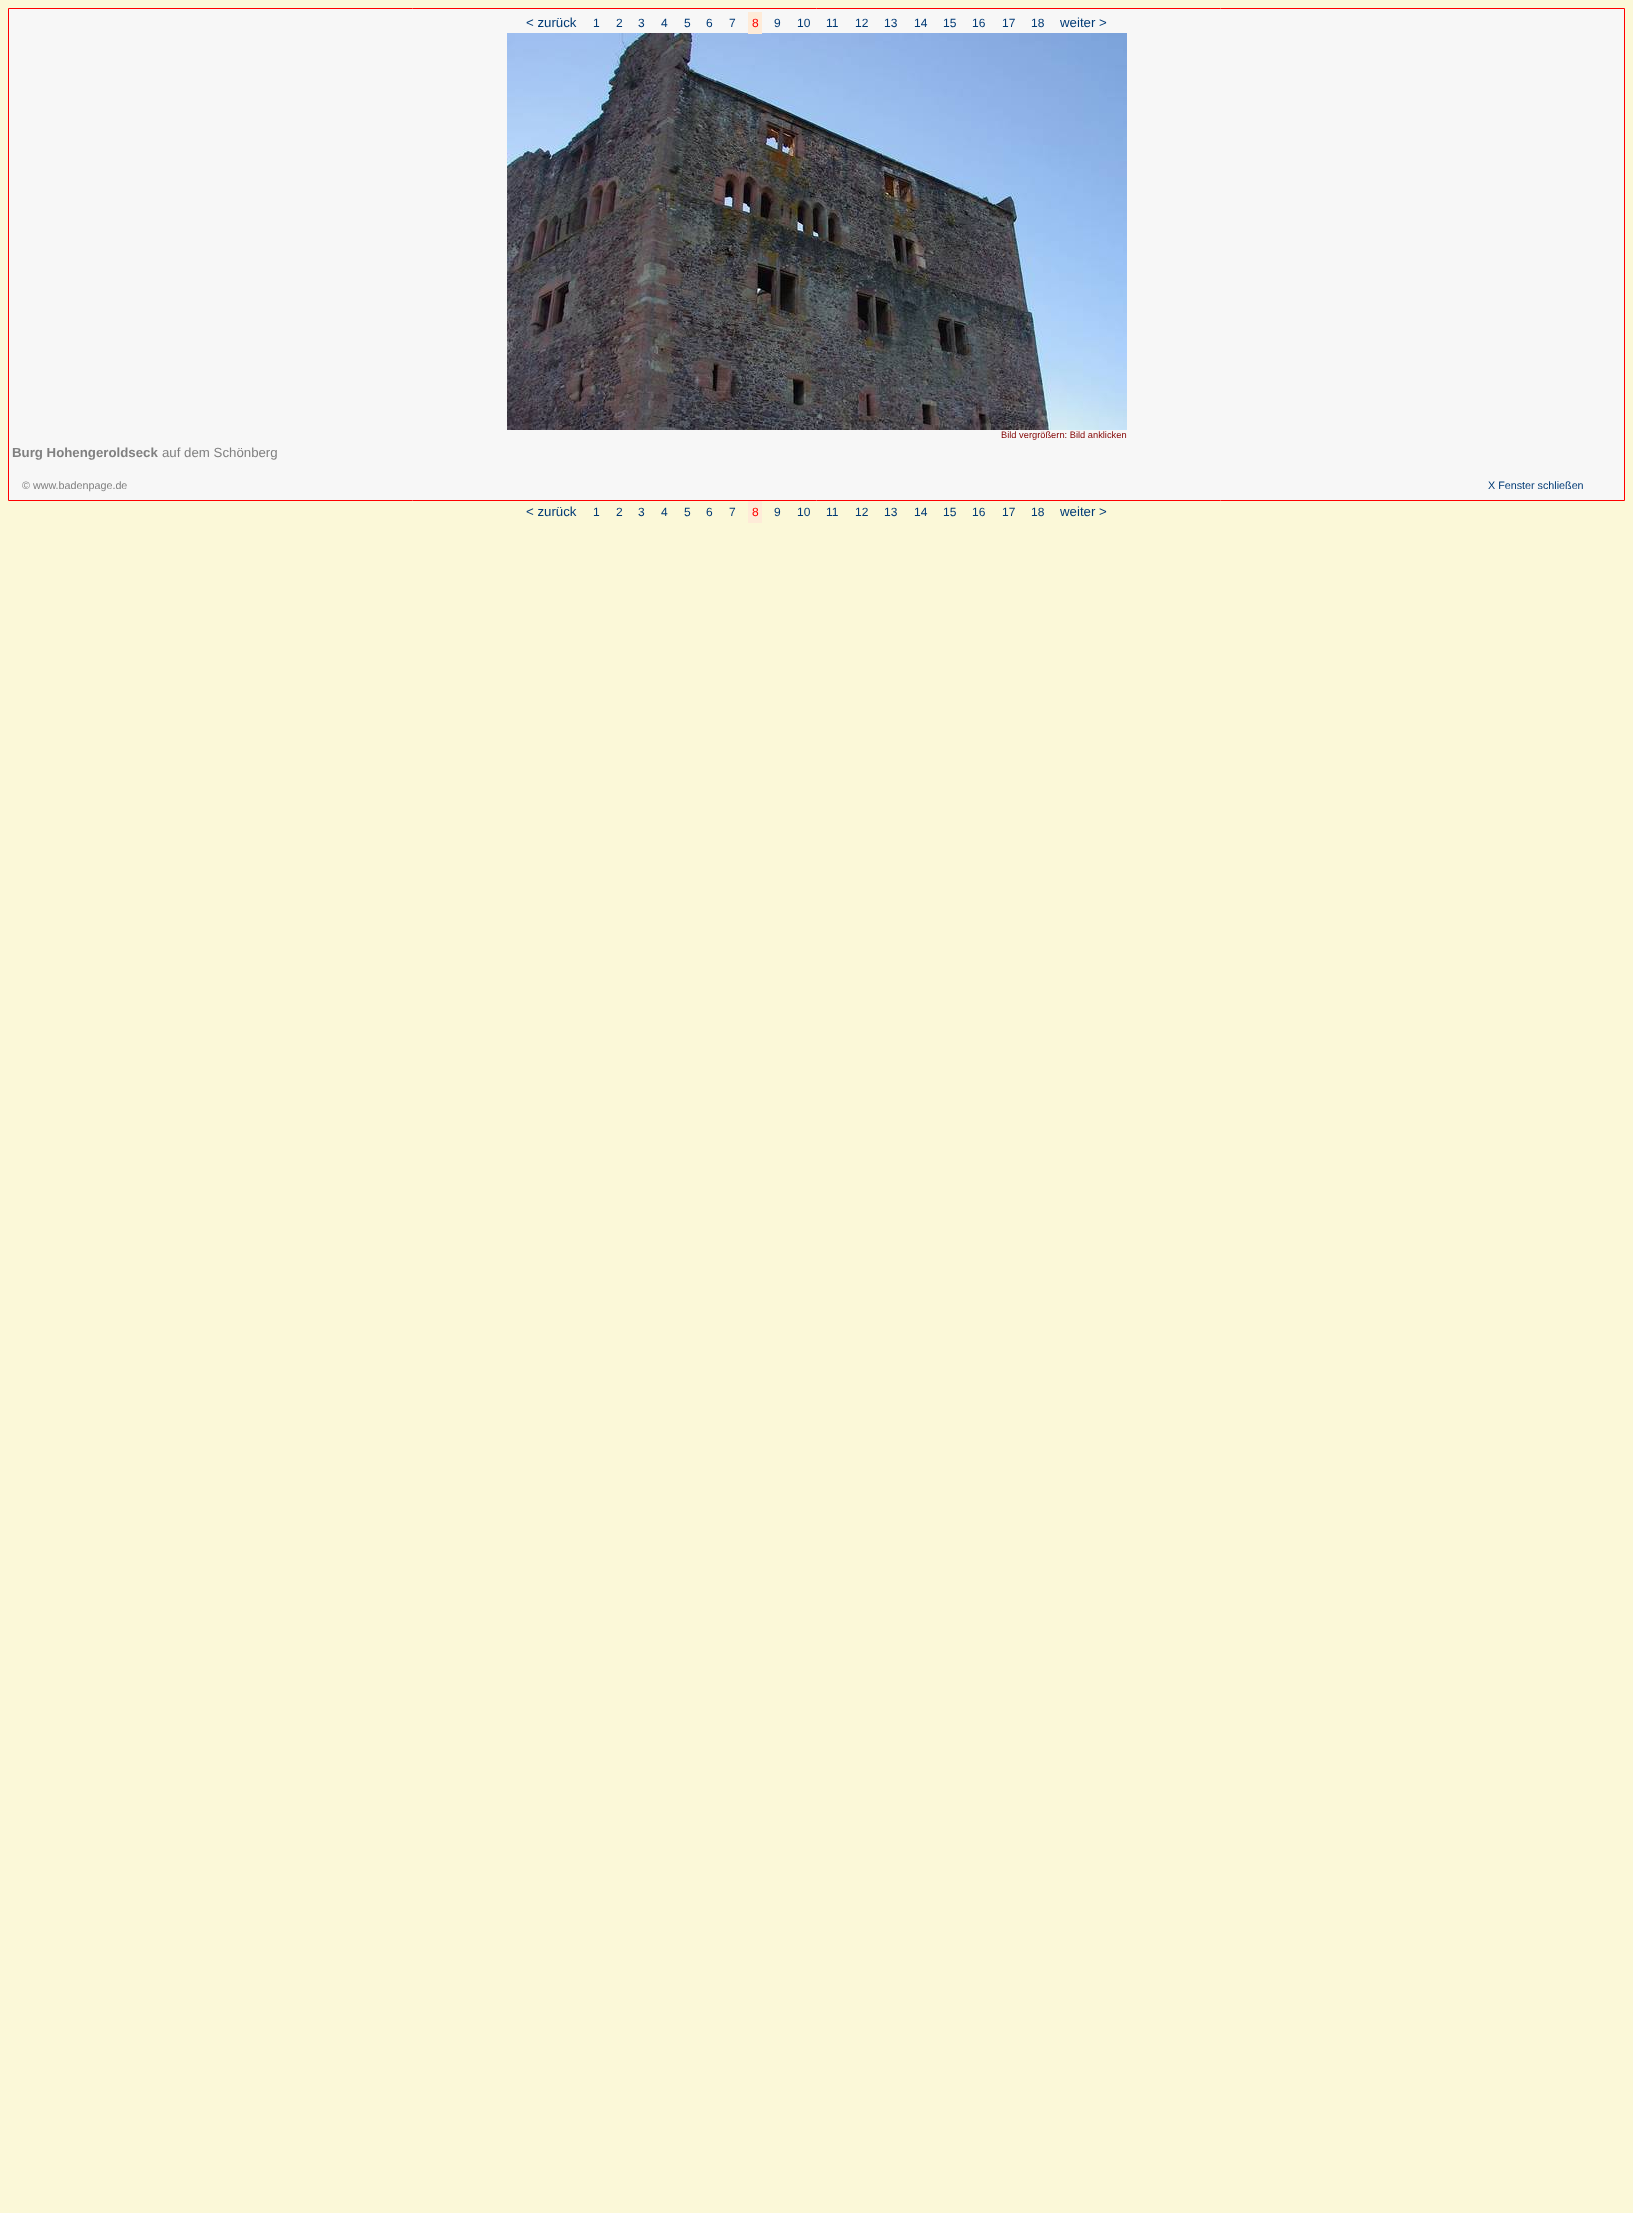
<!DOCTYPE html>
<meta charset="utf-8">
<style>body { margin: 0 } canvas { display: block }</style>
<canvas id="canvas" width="1633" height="2213"></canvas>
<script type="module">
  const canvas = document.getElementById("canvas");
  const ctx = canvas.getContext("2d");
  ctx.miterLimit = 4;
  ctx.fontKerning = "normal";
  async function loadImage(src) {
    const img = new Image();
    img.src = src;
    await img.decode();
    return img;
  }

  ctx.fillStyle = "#fbf8d8";
  ctx.fillRect(0, 0, 1633, 2213);
  ctx.fillStyle = "#f7f7f7";
  ctx.beginPath();
  ctx.rect(8.5, 8.5, 1616, 492);
  ctx.fill();
  ctx.strokeStyle = "#ff0000";
  ctx.stroke();
  ctx.font = "13.25px Liberation Sans";
  ctx.fillStyle = "#003a75";
  ctx.fillText("< zurück", 526, 27);
  ctx.font = "12px Liberation Sans";
  ctx.fillText("1", 593, 27);
  ctx.fillText("2", 616, 27);
  ctx.fillText("3", 638, 27);
  ctx.fillText("4", 661, 27);
  ctx.fillText("5", 684, 27);
  ctx.fillText("6", 706, 27);
  ctx.fillText("7", 729, 27);
  ctx.drawImage(await loadImage("img1.png"), 507, 33, 620, 397);
  ctx.fillStyle = "#feebd8";
  ctx.fillRect(748, 12, 14, 22);
  ctx.fillStyle = "#ff0000";
  ctx.fillText("8", 752, 27);
  ctx.fillStyle = "#003a75";
  ctx.fillText("9", 774, 27);
  ctx.fillText("10", 797, 27);
  ctx.fillText("11", 826, 27);
  ctx.fillText("12", 855, 27);
  ctx.fillText("13", 884, 27);
  ctx.fillText("14", 914, 27);
  ctx.fillText("15", 943, 27);
  ctx.fillText("16", 972, 27);
  ctx.fillText("17", 1002, 27);
  ctx.fillText("18", 1031, 27);
  ctx.font = "13.25px Liberation Sans";
  ctx.fillText("weiter >", 1060, 27);
  ctx.font = "9.3px Liberation Sans";
  ctx.fillStyle = "#800000";
  ctx.fillText("Bild vergrößern: Bild anklicken", 1001, 438);
  ctx.font = "bold 13.25px Liberation Sans";
  ctx.fillStyle = "#808080";
  ctx.fillText("Burg Hohengeroldseck", 12, 457);
  ctx.font = "13.25px Liberation Sans";
  ctx.fillText("auf dem Schönberg", 162, 457);
  ctx.font = "10.75px Liberation Sans";
  ctx.fillText("© www.badenpage.de", 22, 489);
  ctx.fillStyle = "#003a75";
  ctx.fillText("X Fenster schließen", 1488, 489);
  ctx.font = "13.25px Liberation Sans";
  ctx.fillText("< zurück", 526, 516);
  ctx.font = "12px Liberation Sans";
  ctx.fillText("1", 593, 516);
  ctx.fillText("2", 616, 516);
  ctx.fillText("3", 638, 516);
  ctx.fillText("4", 661, 516);
  ctx.fillText("5", 684, 516);
  ctx.fillText("6", 706, 516);
  ctx.fillText("7", 729, 516);
  ctx.fillStyle = "#feebd8";
  ctx.fillRect(748, 501, 14, 22);
  ctx.fillStyle = "#ff0000";
  ctx.fillText("8", 752, 516);
  ctx.fillStyle = "#003a75";
  ctx.fillText("9", 774, 516);
  ctx.fillText("10", 797, 516);
  ctx.fillText("11", 826, 516);
  ctx.fillText("12", 855, 516);
  ctx.fillText("13", 884, 516);
  ctx.fillText("14", 914, 516);
  ctx.fillText("15", 943, 516);
  ctx.fillText("16", 972, 516);
  ctx.fillText("17", 1002, 516);
  ctx.fillText("18", 1031, 516);
  ctx.font = "13.25px Liberation Sans";
  ctx.fillText("weiter >", 1060, 516);
</script>
